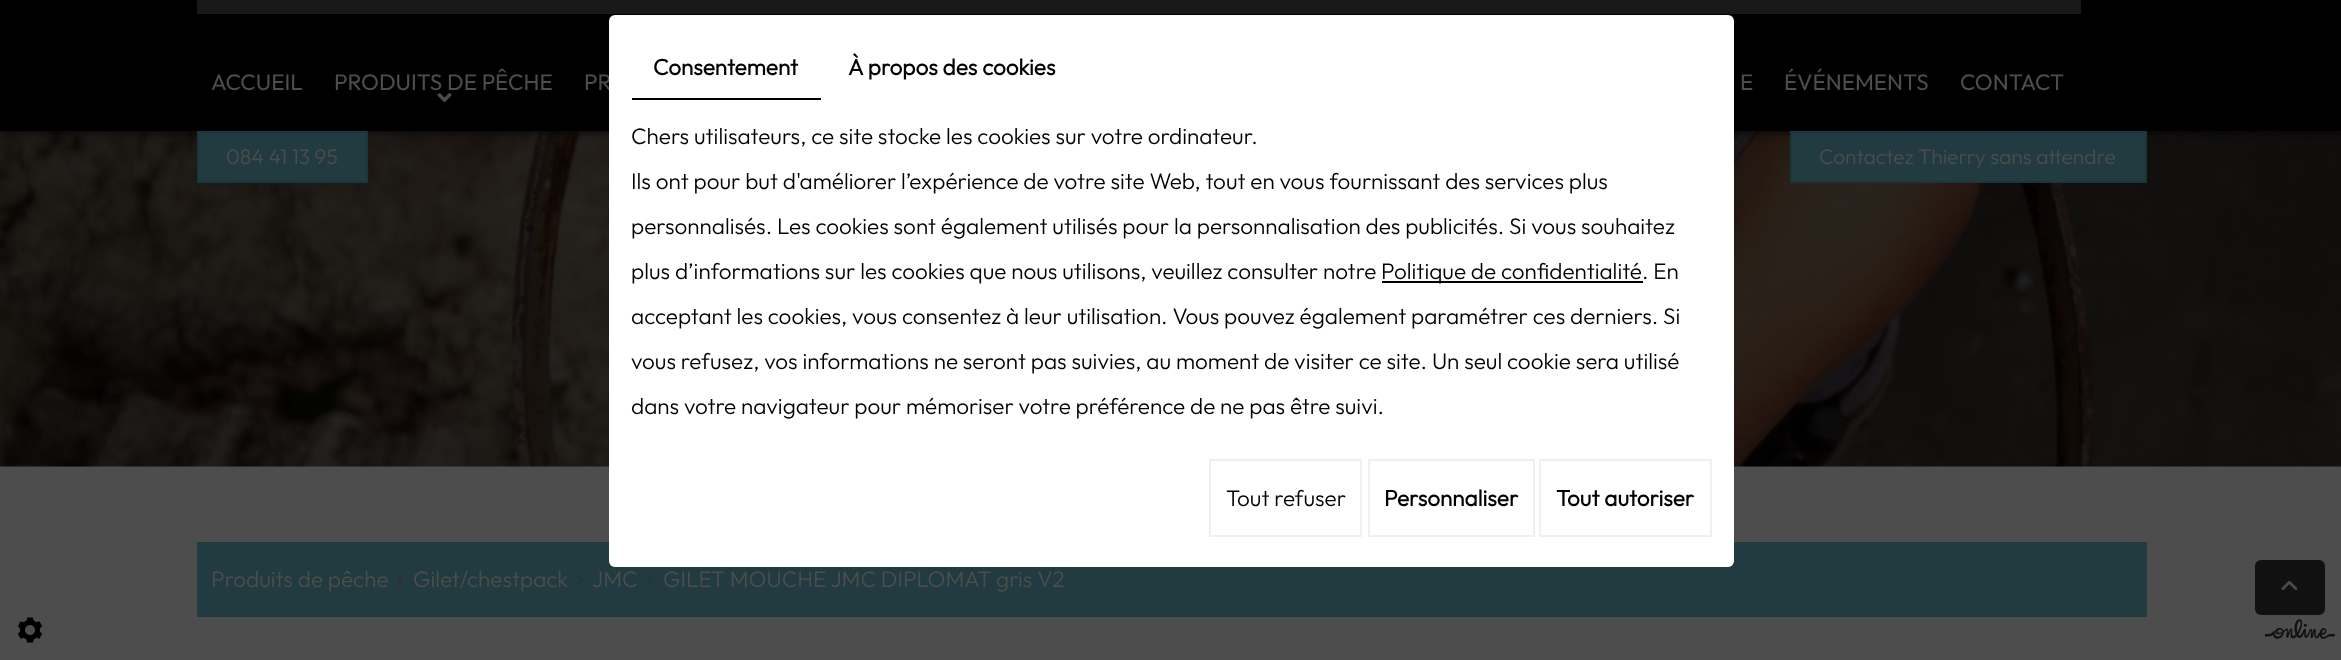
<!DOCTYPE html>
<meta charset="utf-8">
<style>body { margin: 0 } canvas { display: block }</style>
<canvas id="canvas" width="2341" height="660"></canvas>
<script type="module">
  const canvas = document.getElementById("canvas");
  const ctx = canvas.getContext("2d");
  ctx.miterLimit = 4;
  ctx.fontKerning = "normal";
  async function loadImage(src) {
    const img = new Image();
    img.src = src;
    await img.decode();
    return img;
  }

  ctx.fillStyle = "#4d4d4d";
  ctx.fillRect(0, 0, 2341, 660);
  ctx.drawImage(await loadImage("img2.png"), 0, 131, 2341, 336);
  ctx.fillStyle = "#000000";
  ctx.filter = "blur(4px)";
  ctx.beginPath();
  ctx.rect(0, 0, 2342, 131);
  ctx.fill();
  ctx.filter = "none";
  ctx.fillRect(0, 0, 2341, 131);
  ctx.font = "22.5px Outfit";
  ctx.fillStyle = "#4d4d4d";
  ctx.fillText("PR", 584, 90);
  ctx.fillStyle = "#213b41";
  ctx.fillRect(197, 542, 1950, 75);
  ctx.fillStyle = "#ffffff";
  ctx.beginPath();
  ctx.roundRect(609, 15, 1125, 552, 6);
  ctx.fill();
  ctx.fillStyle = "#000000";
  ctx.fillRect(632, 98, 189, 2);
  ctx.font = "bold 22.5px Outfit";
  ctx.fillText("Consentement", 653, 75);
  ctx.fillText("À propos des cookies", 848, 75);
  ctx.font = "300 22.5px Outfit";
  ctx.fillText("Chers utilisateurs, ce site stocke les cookies sur votre ordinateur.", 631, 144);
  ctx.fillText("Ils ont pour but d'améliorer l’expérience de votre site Web, tout en vous fournissant des services plus", 631, 189);
  ctx.fillText("personnalisés. Les cookies sont également utilisés pour la personnalisation des publicités. Si vous souhaitez", 631, 234);
  ctx.fillText("plus d’informations sur les cookies que nous utilisons, veuillez consulter notre", 631, 279);
  ctx.fillRect(1382, 281, 261, 2);
  ctx.fillText("Politique de confidentialité. En", 1381, 279);
  ctx.fillText("acceptant les cookies, vous consentez à leur utilisation. Vous pouvez également paramétrer ces derniers. Si", 631, 324);
  ctx.fillText("vous refusez, vos informations ne seront pas suivies, au moment de visiter ce site. Un seul cookie sera utilisé", 631, 369);
  ctx.fillText("dans votre navigateur pour mémoriser votre préférence de ne pas être suivi.", 631, 414);
  ctx.strokeStyle = "#f0f0f0";
  ctx.lineWidth = 2;
  ctx.strokeRect(1210, 460, 151, 76);
  ctx.fillText("Tout refuser", 1226, 506);
  ctx.strokeRect(1369, 460, 165, 76);
  ctx.font = "bold 22.5px Outfit";
  ctx.fillText("Personnaliser", 1384, 506);
  ctx.strokeRect(1540, 460, 171, 76);
  ctx.fillText("Tout autoriser", 1556, 506);
  ctx.fillStyle = "#191919";
  ctx.fillRect(197, 0, 1884, 14);
  ctx.font = "22.5px Outfit";
  ctx.fillStyle = "#4d4d4d";
  ctx.fillText("ACCUEIL", 211, 90);
  ctx.fillText("PRODUITS DE PÊCHE", 334, 90);
  ctx.drawImage(await loadImage("img1.png"), 437, 93, 15, 10);
  ctx.fillText("E", 1740, 90);
  ctx.fillText("ÉVÉNEMENTS", 1784, 90);
  ctx.fillText("CONTACT", 1960, 90);
  ctx.fillStyle = "#213b41";
  ctx.beginPath();
  ctx.rect(198, 132, 169, 50);
  ctx.fill();
  ctx.strokeStyle = "#1b363b";
  ctx.stroke();
  ctx.font = "300 21px Outfit";
  ctx.fillStyle = "#4d4d4d";
  ctx.fillText("084 41 13 95", 226, 164);
  ctx.fillStyle = "#213b41";
  ctx.beginPath();
  ctx.rect(1791, 132, 355, 50);
  ctx.fill();
  ctx.stroke();
  ctx.fillStyle = "#4d4d4d";
  ctx.fillText("Contactez Thierry sans attendre", 1819, 164);
  ctx.font = "300 22.5px Outfit";
  ctx.fillText("Produits de pêche", 211, 587);
  ctx.drawImage(await loadImage("img3.png"), 397, 574, 7, 12);
  ctx.fillText("Gilet/chestpack", 413, 587);
  ctx.drawImage(await loadImage("img3.png"), 577, 574, 7, 12);
  ctx.fillText("JMC", 592, 587);
  ctx.drawImage(await loadImage("img3.png"), 646, 574, 7, 12);
  ctx.fillText("GILET MOUCHE JMC DIPLOMAT gris V2", 663, 587);
  ctx.fillStyle = "#111111";
  ctx.beginPath();
  ctx.roundRect(2255, 560, 70, 55, 6);
  ctx.fill();
  ctx.drawImage(await loadImage("img4.png"), 2281, 580, 17, 10);
  ctx.drawImage(await loadImage("img5.png"), 17, 617, 26, 26);
  ctx.drawImage(await loadImage("img6.png"), 2265, 619, 70, 20);
</script>
